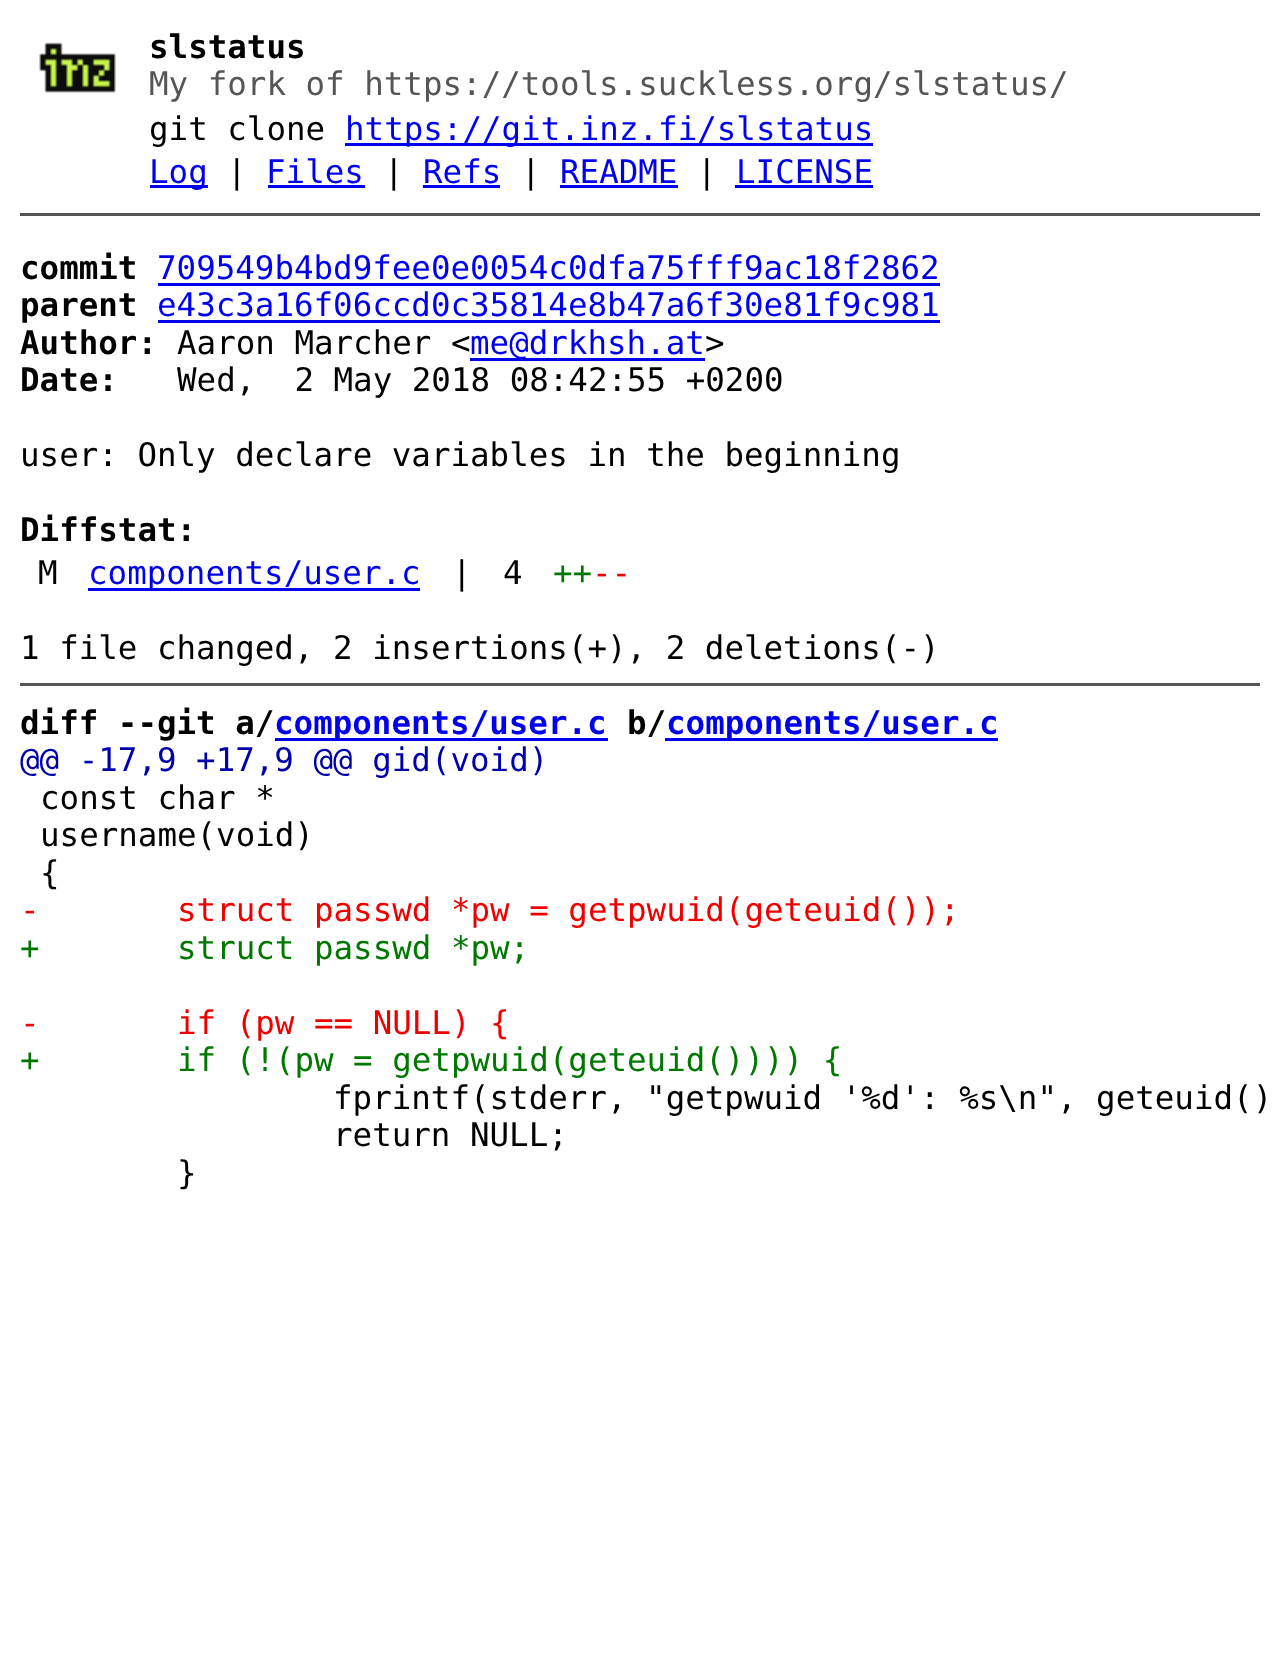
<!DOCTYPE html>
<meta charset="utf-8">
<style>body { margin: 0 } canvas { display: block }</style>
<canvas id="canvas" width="1280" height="1680"></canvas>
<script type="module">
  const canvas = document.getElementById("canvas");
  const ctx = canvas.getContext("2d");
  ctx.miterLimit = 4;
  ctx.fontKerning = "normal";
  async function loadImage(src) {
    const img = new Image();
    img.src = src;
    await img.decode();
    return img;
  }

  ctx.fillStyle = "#ffffff";
  ctx.fillRect(0, 0, 1280, 1680);
  ctx.drawImage(await loadImage("img1.png"), 39, 42, 77, 51);
  ctx.font = "bold 32.5px DejaVu Sans Mono";
  ctx.fillStyle = "#000000";
  ctx.fillText("slstatus", 149, 58);
  ctx.font = "32.5px DejaVu Sans Mono";
  ctx.fillStyle = "#555555";
  ctx.fillText("My fork of https://tools.suckless.org/slstatus/", 149, 95);
  ctx.fillStyle = "#000000";
  ctx.fillText("git clone", 149, 140);
  ctx.fillStyle = "#0000ee";
  ctx.fillRect(345, 143, 528, 3);
  ctx.fillText("https://git.inz.fi/slstatus", 345, 140);
  ctx.fillRect(150, 185, 58, 3);
  ctx.fillText("Log", 149, 183);
  ctx.fillStyle = "#000000";
  ctx.fillText("|", 227, 183);
  ctx.fillStyle = "#0000ee";
  ctx.fillText("Files", 266, 183);
  ctx.fillRect(268, 185, 97, 3);
  ctx.fillStyle = "#000000";
  ctx.fillText("|", 384, 183);
  ctx.fillStyle = "#0000ee";
  ctx.fillText("Refs", 423, 183);
  ctx.fillRect(423, 185, 77, 3);
  ctx.fillStyle = "#000000";
  ctx.fillText("|", 521, 183);
  ctx.fillStyle = "#0000ee";
  ctx.fillText("README", 560, 183);
  ctx.fillRect(560, 185, 118, 3);
  ctx.fillStyle = "#000000";
  ctx.fillText("|", 697, 183);
  ctx.fillStyle = "#0000ee";
  ctx.fillText("LICENSE", 736, 183);
  ctx.fillRect(735, 185, 138, 3);
  ctx.fillStyle = "#555555";
  ctx.fillRect(20, 213, 1240, 3);
  ctx.font = "bold 32.5px DejaVu Sans Mono";
  ctx.fillStyle = "#000000";
  ctx.fillText("commit", 20, 279);
  ctx.font = "32.5px DejaVu Sans Mono";
  ctx.fillStyle = "#0000ee";
  ctx.fillText("709549b4bd9fee0e0054c0dfa75fff9ac18f2862", 157, 279);
  ctx.fillRect(158, 283, 782, 3);
  ctx.font = "bold 32.5px DejaVu Sans Mono";
  ctx.fillStyle = "#000000";
  ctx.fillText("parent", 20, 316);
  ctx.font = "32.5px DejaVu Sans Mono";
  ctx.fillStyle = "#0000ee";
  ctx.fillText("e43c3a16f06ccd0c35814e8b47a6f30e81f9c981", 157, 316);
  ctx.fillRect(158, 320, 782, 3);
  ctx.font = "bold 32.5px DejaVu Sans Mono";
  ctx.fillStyle = "#000000";
  ctx.fillText("Author:", 20, 354);
  ctx.font = "32.5px DejaVu Sans Mono";
  ctx.fillText("Aaron Marcher <", 177, 354);
  ctx.fillStyle = "#0000ee";
  ctx.fillRect(470, 358, 235, 3);
  ctx.fillText("me@drkhsh.at", 470, 354);
  ctx.fillStyle = "#000000";
  ctx.fillText(">", 705, 354);
  ctx.font = "bold 32.5px DejaVu Sans Mono";
  ctx.fillText("Date:", 20, 391);
  ctx.font = "32.5px DejaVu Sans Mono";
  ctx.fillText("Wed,  2 May 2018 08:42:55 +0200", 177, 391);
  ctx.fillText("user: Only declare variables in the beginning", 20, 466);
  ctx.font = "bold 32.5px DejaVu Sans Mono";
  ctx.fillText("Diffstat:", 20, 541);
  ctx.font = "32.5px DejaVu Sans Mono";
  ctx.fillText("M", 38, 584);
  ctx.fillStyle = "#0000ee";
  ctx.fillRect(88, 588, 332, 3);
  ctx.fillText("components/user.c", 88, 584);
  ctx.fillStyle = "#000000";
  ctx.fillText("|", 452, 584);
  ctx.fillText("4", 503, 584);
  ctx.fillStyle = "#007700";
  ctx.fillText("++", 553, 584);
  ctx.fillStyle = "#ee0000";
  ctx.fillText("--", 592, 584);
  ctx.fillStyle = "#000000";
  ctx.fillText("1 file changed, 2 insertions(+), 2 deletions(-)", 20, 659);
  ctx.fillStyle = "#555555";
  ctx.fillRect(20, 683, 1240, 3);
  ctx.font = "bold 32.5px DejaVu Sans Mono";
  ctx.fillStyle = "#000000";
  ctx.fillText("diff --git a/", 20, 734);
  ctx.fillStyle = "#0000ee";
  ctx.fillRect(275, 738, 333, 3);
  ctx.fillText("components/user.c", 274, 734);
  ctx.fillStyle = "#000000";
  ctx.fillText("b/", 627, 734);
  ctx.fillStyle = "#0000ee";
  ctx.fillRect(665, 738, 333, 3);
  ctx.fillText("components/user.c", 666, 734);
  ctx.font = "32.5px DejaVu Sans Mono";
  ctx.fillStyle = "#0000aa";
  ctx.fillText("@@ -17,9 +17,9 @@ gid(void)", 20, 771);
  ctx.fillStyle = "#000000";
  ctx.fillText("const char *", 40, 809);
  ctx.fillText("username(void)", 40, 846);
  ctx.fillText("{", 40, 884);
  ctx.fillStyle = "#ee0000";
  ctx.fillText("-", 20, 921);
  ctx.fillText("struct passwd *pw = getpwuid(geteuid());", 177, 921);
  ctx.fillStyle = "#007700";
  ctx.fillText("+", 20, 959);
  ctx.fillText("struct passwd *pw;", 177, 959);
  ctx.fillStyle = "#ee0000";
  ctx.fillText("-", 20, 1034);
  ctx.fillText("if (pw == NULL) {", 177, 1034);
  ctx.fillStyle = "#007700";
  ctx.fillText("+", 20, 1071);
  ctx.fillText("if (!(pw = getpwuid(geteuid()))) {", 177, 1071);
  ctx.fillStyle = "#000000";
  ctx.fillText("fprintf(stderr, \"getpwuid '%d': %s\\n\", geteuid()", 333, 1109);
  ctx.fillText("return NULL;", 333, 1146);
  ctx.fillText("}", 177, 1184);
</script>
